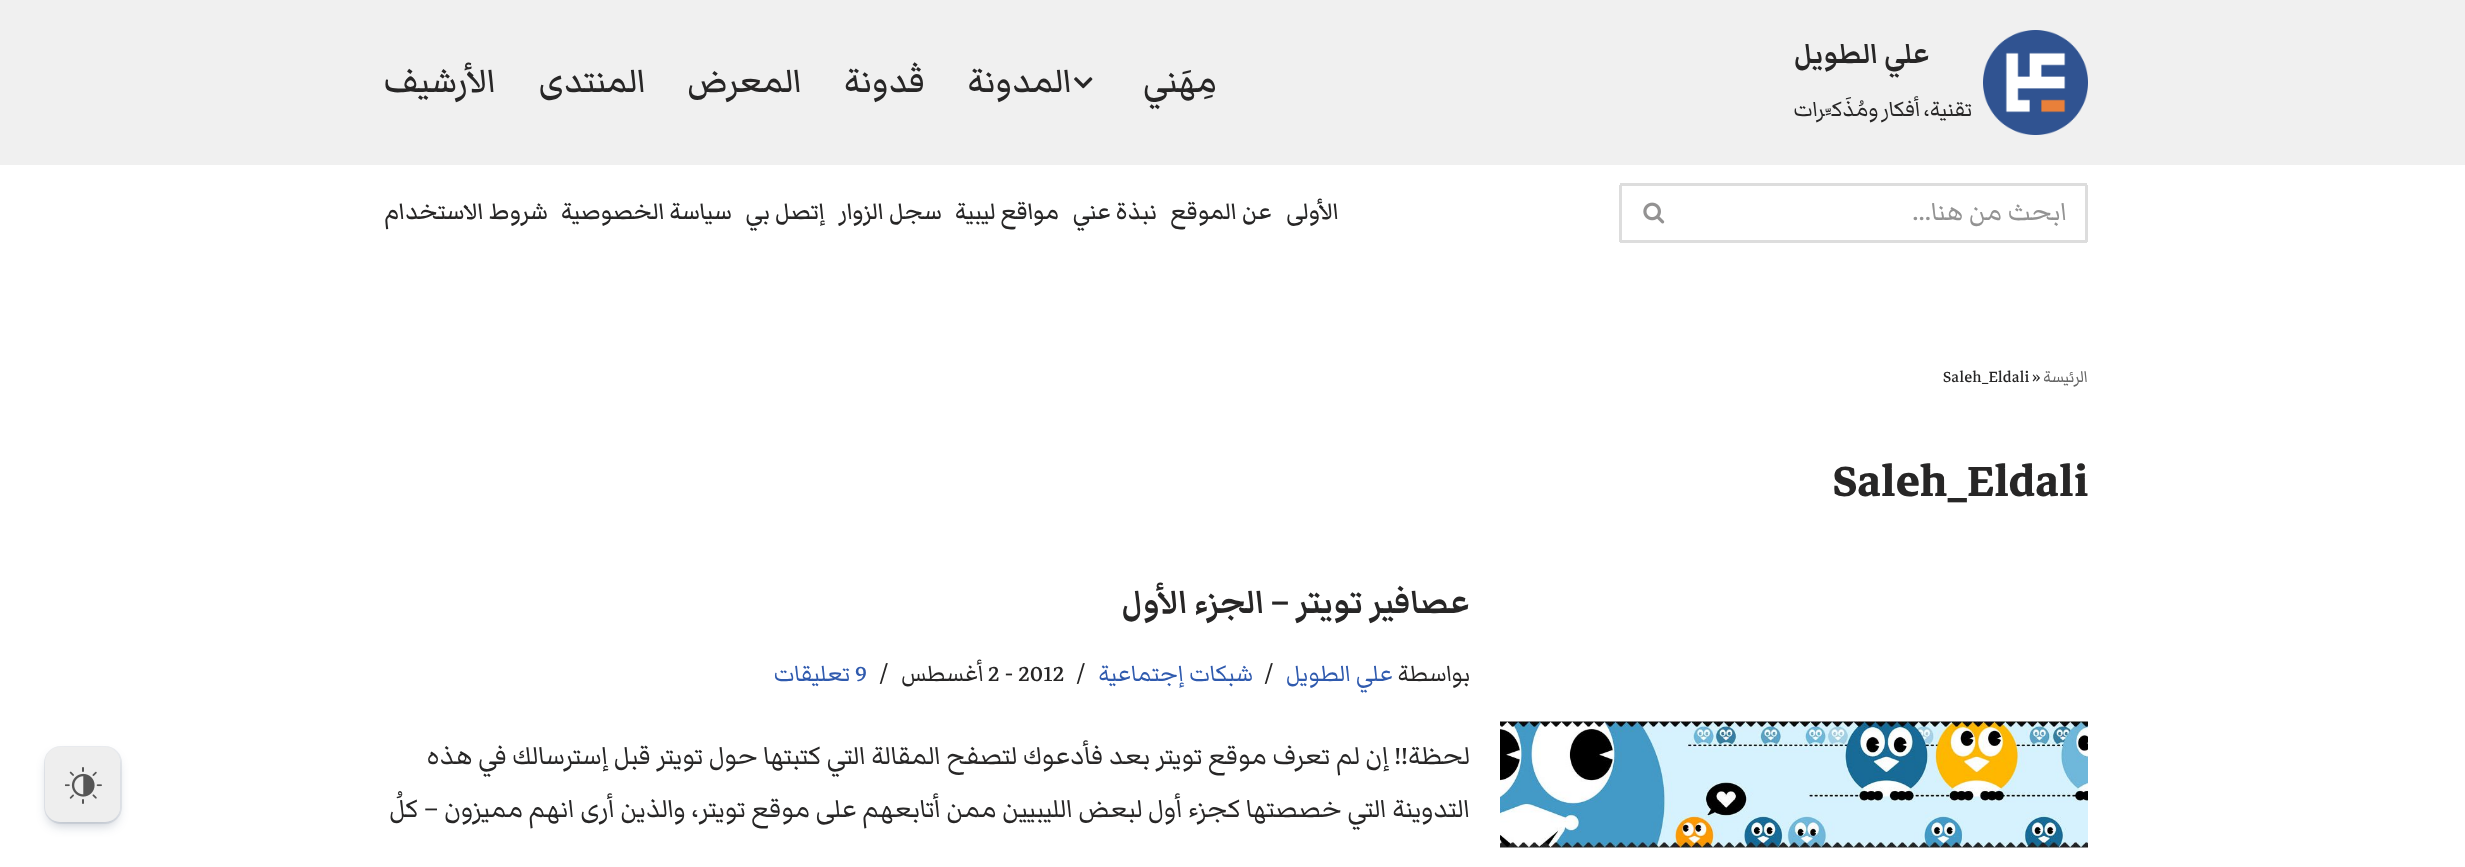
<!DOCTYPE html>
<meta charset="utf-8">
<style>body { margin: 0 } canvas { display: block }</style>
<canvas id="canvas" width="2465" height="867"></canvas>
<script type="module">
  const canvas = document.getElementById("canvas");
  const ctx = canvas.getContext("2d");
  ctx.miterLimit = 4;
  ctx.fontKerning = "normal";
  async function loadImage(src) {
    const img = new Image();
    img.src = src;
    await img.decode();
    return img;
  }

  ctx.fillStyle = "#ffffff";
  ctx.fillRect(0, 0, 2465, 867);
  ctx.fillStyle = "#f0f0f0";
  ctx.fillRect(0, 0, 2465, 165);
  ctx.drawImage(await loadImage("img1.png"), 1983, 30, 105, 105);
  ctx.direction = "rtl";
  ctx.font = "bold 36px Markazi Text";
  ctx.fillStyle = "#272626";
  ctx.fillText("علي الطويل", 1930, 63);
  ctx.wordSpacing = "-2px";
  ctx.font = "27.5px Markazi Text";
  ctx.fillText("تقنية، أفكار ومُذَكِّرات", 1972, 116);
  ctx.wordSpacing = "0px";
  ctx.font = "500 43px Markazi Text";
  ctx.fillText("مِهَني", 1217, 92);
  ctx.drawImage(await loadImage("img2.png"), 1074, 77, 19, 12);
  ctx.fillText("المدونة", 1072, 92);
  ctx.fillText("ڤدونة", 925, 92);
  ctx.fillText("المعرض", 802, 92);
  ctx.fillText("المنتدى", 646, 92);
  ctx.fillText("الأرشيف", 496, 92);
  ctx.fillStyle = "#dddddd";
  ctx.fillRect(1620, 183, 467, 3);
  ctx.fillRect(2085, 185, 3, 57);
  ctx.fillRect(1620, 240, 467, 3);
  ctx.font = "33px Markazi Text";
  ctx.fillStyle = "#939393";
  ctx.fillText("ابحث من هنا...", 2067, 220);
  ctx.fillStyle = "#dddddd";
  ctx.fillRect(1619, 185, 3, 57);
  ctx.drawImage(await loadImage("img3.png"), 1643, 202, 22, 22);
  ctx.font = "500 29.75px Markazi Text";
  ctx.fillStyle = "#272626";
  ctx.fillText("الأولى", 1339, 219);
  ctx.fillText("عن الموقع", 1272, 219);
  ctx.fillText("نبذة عني", 1157, 219);
  ctx.fillText("مواقع ليبية", 1059, 219);
  ctx.fillText("سجل الزوار", 942, 219);
  ctx.fillText("إتصل بي", 825, 219);
  ctx.fillText("سياسة الخصوصية", 732, 219);
  ctx.fillText("شروط الاستخدام", 548, 219);
  ctx.font = "21px Markazi Text";
  ctx.fillStyle = "#676767";
  ctx.fillText("الرئيسة", 2088, 382);
  ctx.direction = "ltr";
  ctx.fillStyle = "#272626";
  ctx.fillText("»", 2032, 382);
  ctx.fillText("Saleh_Eldali", 1943, 382);
  ctx.font = "bold 60px Markazi Text";
  ctx.fillText("Saleh_Eldali", 1833, 496);
  ctx.drawImage(await loadImage("img4.png"), 1500, 721, 588, 127);
  ctx.direction = "rtl";
  ctx.font = "bold 42px Markazi Text";
  ctx.fillText("عصافير تويتر – الجزء الأول", 1470, 613);
  ctx.font = "29.75px Markazi Text";
  ctx.fillText("بواسطة", 1470, 681);
  ctx.fillStyle = "#2f5aae";
  ctx.fillText("علي الطويل", 1393, 681);
  ctx.direction = "ltr";
  ctx.fillStyle = "#272626";
  ctx.fillText("/", 1264, 681);
  ctx.direction = "rtl";
  ctx.fillStyle = "#2f5aae";
  ctx.fillText("شبكات إجتماعية", 1253, 681);
  ctx.direction = "ltr";
  ctx.fillStyle = "#272626";
  ctx.fillText("/", 1076, 681);
  ctx.fillText("2 - 2012", 988, 681);
  ctx.direction = "rtl";
  ctx.fillText("أغسطس", 984, 681);
  ctx.direction = "ltr";
  ctx.fillText("/", 879, 681);
  ctx.fillStyle = "#2f5aae";
  ctx.fillText("9", 855, 681);
  ctx.direction = "rtl";
  ctx.fillText("تعليقات", 850, 681);
  ctx.font = "33px Markazi Text";
  ctx.fillStyle = "#272626";
  ctx.fillText("لحظة!! إن لم تعرف موقع تويتر بعد فأدعوك لتصفح المقالة التي كتبتها حول تويتر قبل إسترسالك في هذه", 1470, 764);
  ctx.fillText("التدوينة التي خصصتها كجزء أول لبعض الليبيين ممن أتابعهم على موقع تويتر، والذين أرى انهم مميزون – كلُ", 1470, 817);
  ctx.beginPath();
  ctx.roundRect(45, 747, 76, 76, 16);
  ctx.strokeStyle = "#ebedf0";
  ctx.lineWidth = 2;
  ctx.stroke();
  ctx.fillStyle = "rgba(9, 30, 66, 0.25)";
  ctx.filter = "blur(6px)";
  ctx.beginPath();
  ctx.roundRect(48, 756, 69, 69, 12);
  ctx.fill();
  ctx.filter = "none";
  ctx.fillStyle = "#eeeeee";
  ctx.beginPath();
  ctx.roundRect(45, 747, 75, 75, 15);
  ctx.fill();
  ctx.drawImage(await loadImage("img5.png"), 65, 767, 37, 37);
</script>
